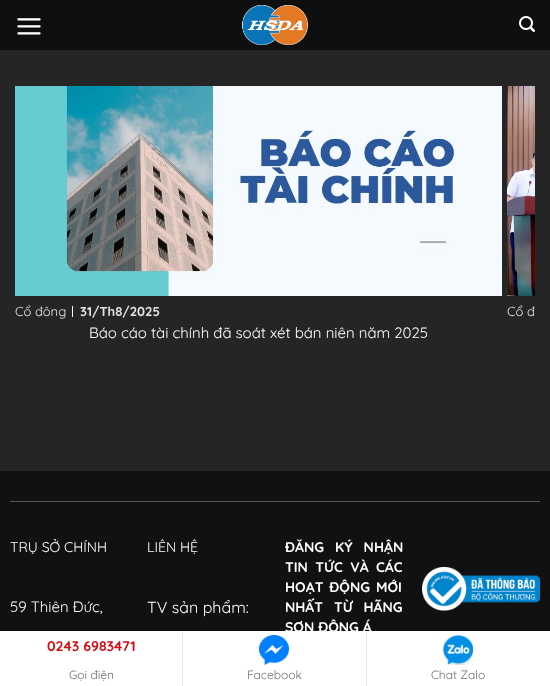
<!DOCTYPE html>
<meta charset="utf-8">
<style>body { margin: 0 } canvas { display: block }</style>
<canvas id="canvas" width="550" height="686"></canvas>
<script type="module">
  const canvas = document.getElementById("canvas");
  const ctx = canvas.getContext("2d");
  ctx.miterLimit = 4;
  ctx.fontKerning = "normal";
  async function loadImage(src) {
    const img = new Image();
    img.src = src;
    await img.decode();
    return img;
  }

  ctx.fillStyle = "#252525";
  ctx.fillRect(0, 0, 550, 686);
  ctx.fillStyle = "#100f0f";
  ctx.fillRect(0, 0, 550, 50);
  ctx.drawImage(await loadImage("img1.png"), 17, 18, 24, 17);
  ctx.drawImage(await loadImage("img2.png"), 241, 5, 68, 40);
  ctx.drawImage(await loadImage("img3.png"), 519, 16, 16, 16);
  ctx.drawImage(await loadImage("img4.png"), 15, 86, 487, 210);
  ctx.font = "13px Quicksand";
  ctx.fillStyle = "#e2e2e2";
  ctx.fillText("Cổ đông", 15, 316);
  ctx.fillStyle = "#ffffff";
  ctx.fillRect(72, 306, 1, 11);
  ctx.font = "bold 13px Quicksand";
  ctx.fillStyle = "#e2e2e2";
  ctx.fillText("31/Th8/2025", 80, 316);
  ctx.font = "15px Quicksand";
  ctx.fillStyle = "#ffffff";
  ctx.fillText("Báo cáo tài chính đã soát xét bán niên năm 2025", 89, 338);
  ctx.drawImage(await loadImage("img5.png"), 507, 86, 28, 210);
  ctx.font = "13px Quicksand";
  ctx.fillStyle = "#e2e2e2";
  ctx.fillText("Cổ đ", 507, 316);
  ctx.fillStyle = "#111111";
  ctx.fillRect(0, 471, 550, 160);
  ctx.fillStyle = "#555555";
  ctx.fillRect(10, 501, 530, 1);
  ctx.font = "14px Quicksand";
  ctx.fillStyle = "#ffffff";
  ctx.fillText("TRỤ SỞ CHÍNH", 10, 552);
  ctx.font = "15px Quicksand";
  ctx.fillText("59 Thiên Đức,", 10, 612);
  ctx.font = "14px Quicksand";
  ctx.fillText("LIÊN HỆ", 147, 552);
  ctx.font = "16px Quicksand";
  ctx.fillText("TV sản phẩm:", 147, 613);
  ctx.wordSpacing = "7px";
  ctx.font = "bold 14px Quicksand";
  ctx.fillText("ĐĂNG KÝ NHẬN", 285, 552);
  ctx.wordSpacing = "3.5px";
  ctx.fillText("TIN TỨC VÀ CÁC", 285, 572);
  ctx.wordSpacing = "2px";
  ctx.fillText("HOẠT ĐỘNG MỚI", 285, 592);
  ctx.wordSpacing = "7px";
  ctx.fillText("NHẤT TỪ HÃNG", 285, 612);
  ctx.wordSpacing = "0px";
  ctx.fillText("SƠN ĐÔNG Á", 285, 632);
  ctx.drawImage(await loadImage("img6.png"), 422, 567, 118, 44);
  ctx.fillRect(0, 631, 182, 55);
  ctx.fillStyle = "#eae9e9";
  ctx.fillRect(182, 631, 1, 55);
  ctx.fillStyle = "#d20d14";
  ctx.fillText("0243 6983471", 47, 651);
  ctx.font = "12px Quicksand";
  ctx.fillStyle = "#6b7177";
  ctx.fillText("Gọi điện", 69, 679);
  ctx.fillStyle = "#ffffff";
  ctx.fillRect(183, 631, 183, 55);
  ctx.fillStyle = "#eae9e9";
  ctx.fillRect(366, 631, 1, 55);
  ctx.drawImage(await loadImage("img7.png"), 259, 635, 30, 30);
  ctx.fillStyle = "#6b7177";
  ctx.fillText("Facebook", 247, 679);
  ctx.fillStyle = "#ffffff";
  ctx.fillRect(367, 631, 183, 55);
  ctx.drawImage(await loadImage("img8.png"), 443, 635, 30, 30);
  ctx.fillStyle = "#6b7177";
  ctx.fillText("Chat Zalo", 431, 679);
</script>
